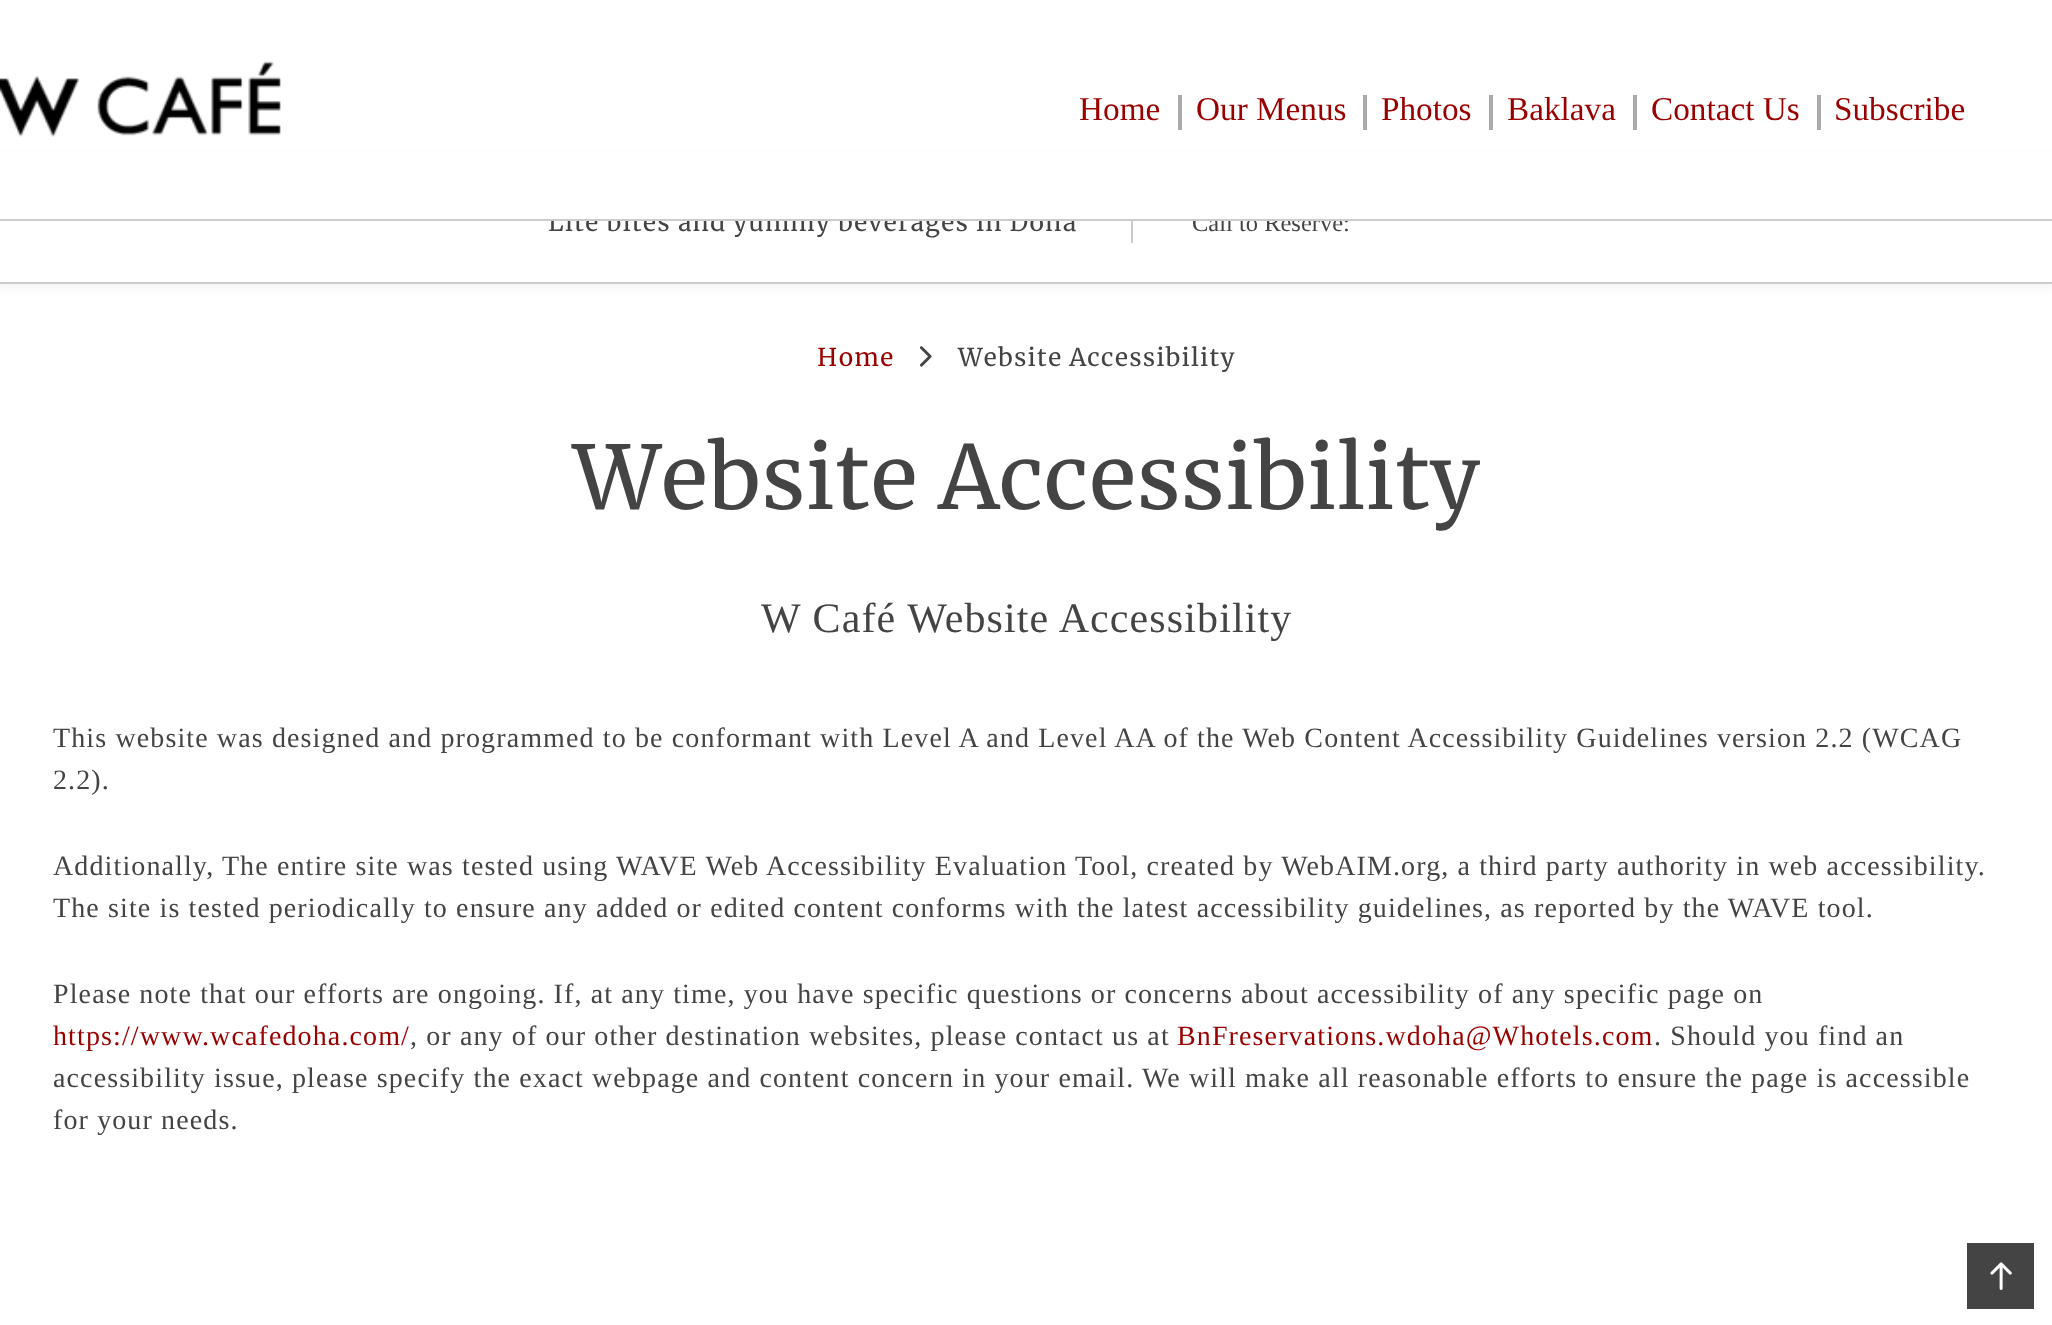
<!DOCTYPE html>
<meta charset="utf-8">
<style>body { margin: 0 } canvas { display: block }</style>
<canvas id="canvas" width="2052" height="1325"></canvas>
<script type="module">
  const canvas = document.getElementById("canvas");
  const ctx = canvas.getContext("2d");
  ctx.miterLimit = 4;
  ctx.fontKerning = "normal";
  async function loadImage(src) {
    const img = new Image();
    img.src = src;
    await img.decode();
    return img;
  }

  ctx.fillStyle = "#ffffff";
  ctx.fillRect(0, 0, 2052, 1325);
  ctx.fillStyle = "rgba(0, 0, 0, 0.06)";
  ctx.filter = "blur(5.5px)";
  ctx.beginPath();
  ctx.rect(-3, 158, 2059, 129);
  ctx.fill();
  ctx.filter = "none";
  ctx.fillStyle = "#ffffff";
  ctx.fillRect(0, 221, 2052, 61);
  ctx.letterSpacing = "1.12px";
  ctx.font = "24.5px Merriweather";
  ctx.fillStyle = "#444444";
  ctx.fillText("Lite bites and yummy beverages in Doha", 548, 231);
  ctx.letterSpacing = "0px";
  ctx.font = "24.5px Liberation Serif";
  ctx.fillText("Call to Reserve:", 1192, 231);
  ctx.fillStyle = "#ffffff";
  ctx.fillRect(0, 153, 2052, 66);
  ctx.fillStyle = "#cccccc";
  ctx.fillRect(0, 219, 2052, 2);
  ctx.drawImage(await loadImage("img1.png"), 0, 61, 281, 76);
  ctx.font = "33.25px Liberation Serif";
  ctx.fillStyle = "#990000";
  ctx.fillText("Home", 1079, 120);
  ctx.fillStyle = "#aaaaaa";
  ctx.fillRect(1178, 95, 4, 35);
  ctx.fillStyle = "#990000";
  ctx.fillText("Our Menus", 1196, 120);
  ctx.fillStyle = "#aaaaaa";
  ctx.fillRect(1363, 95, 4, 35);
  ctx.fillStyle = "#990000";
  ctx.fillText("Photos", 1381, 120);
  ctx.fillStyle = "#aaaaaa";
  ctx.fillRect(1489, 95, 4, 35);
  ctx.fillStyle = "#990000";
  ctx.fillText("Baklava", 1507, 120);
  ctx.fillStyle = "#aaaaaa";
  ctx.fillRect(1633, 95, 4, 35);
  ctx.fillStyle = "#990000";
  ctx.fillText("Contact Us", 1651, 120);
  ctx.fillStyle = "#aaaaaa";
  ctx.fillRect(1817, 95, 4, 35);
  ctx.fillStyle = "#990000";
  ctx.fillText("Subscribe", 1834, 120);
  ctx.fillStyle = "#cccccc";
  ctx.fillRect(0, 282, 2052, 2);
  ctx.fillRect(1131, 221, 2, 22);
  ctx.letterSpacing = "1.12px";
  ctx.font = "24.5px Merriweather";
  ctx.fillStyle = "#990000";
  ctx.fillText("Home", 817, 366);
  ctx.drawImage(await loadImage("img2.png"), 920, 346, 12, 21);
  ctx.fillStyle = "#444444";
  ctx.fillText("Website Accessibility", 958, 366);
  ctx.letterSpacing = "0px";
  ctx.font = "87.5px Merriweather";
  ctx.fillText("Website Accessibility", 573, 509);
  ctx.letterSpacing = "1.12px";
  ctx.font = "42px Liberation Serif";
  ctx.fillText("W Café Website Accessibility", 761, 632);
  ctx.font = "28px Liberation Serif";
  ctx.fillText("This website was designed and programmed to be conformant with Level A and Level AA of the Web Content Accessibility Guidelines version 2.2 (WCAG", 53, 747);
  ctx.fillText("2.2).", 53, 789);
  ctx.fillText("Additionally, The entire site was tested using WAVE Web Accessibility Evaluation Tool, created by WebAIM.org, a third party authority in web accessibility.", 53, 875);
  ctx.fillText("The site is tested periodically to ensure any added or edited content conforms with the latest accessibility guidelines, as reported by the WAVE tool.", 53, 917);
  ctx.fillText("Please note that our efforts are ongoing. If, at any time, you have specific questions or concerns about accessibility of any specific page on", 53, 1003);
  ctx.fillStyle = "#990000";
  ctx.fillText("https://www.wcafedoha.com/", 53, 1045);
  ctx.fillStyle = "#444444";
  ctx.fillText(", or any of our other destination websites, please contact us at", 410, 1045);
  ctx.fillStyle = "#990000";
  ctx.fillText("BnFreservations.wdoha@Whotels.com", 1177, 1045);
  ctx.fillStyle = "#444444";
  ctx.fillText(". Should you find an", 1654, 1045);
  ctx.fillText("accessibility issue, please specify the exact webpage and content concern in your email. We will make all reasonable efforts to ensure the page is accessible", 53, 1087);
  ctx.fillText("for your needs.", 53, 1129);
  ctx.fillRect(1967, 1243, 67, 66);
  ctx.drawImage(await loadImage("img3.png"), 1990, 1262, 22, 28);
</script>
